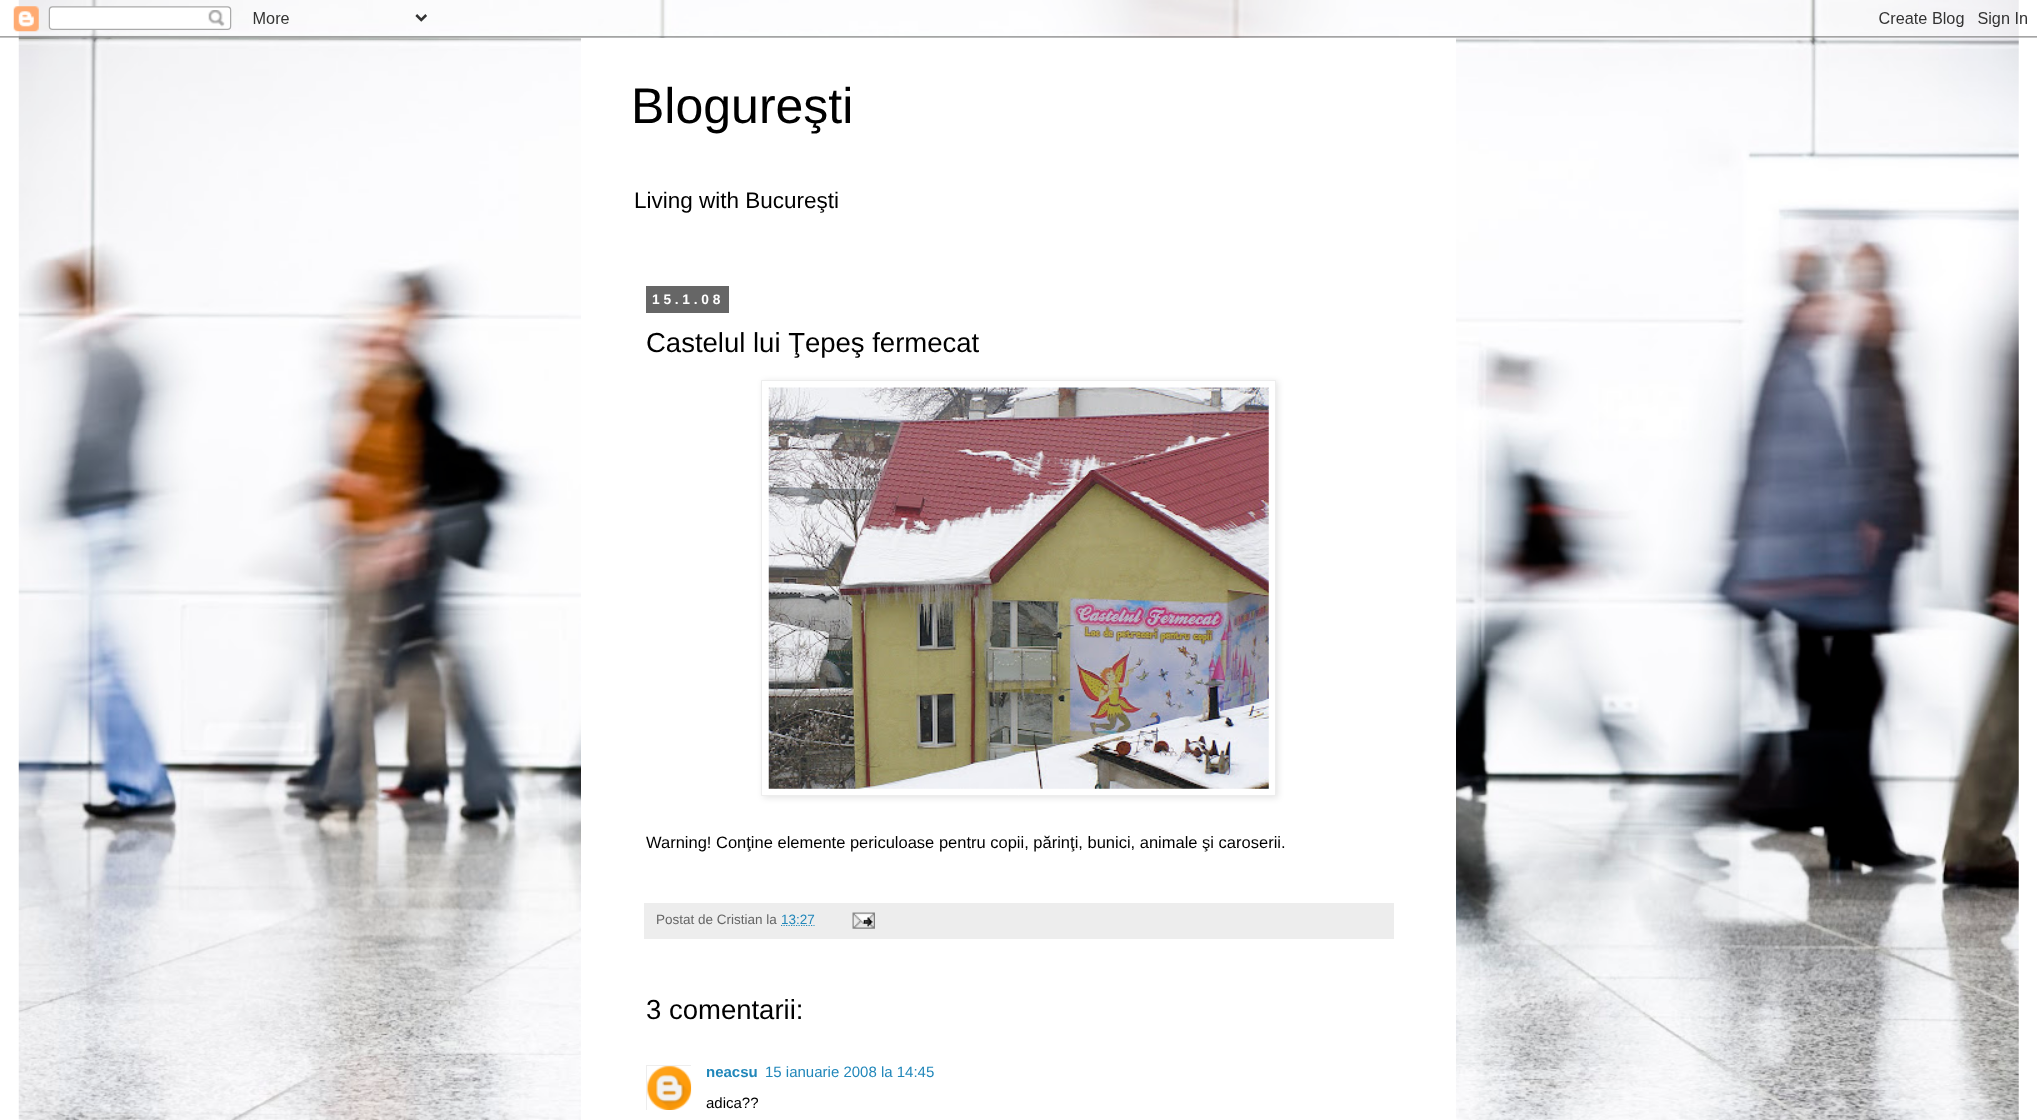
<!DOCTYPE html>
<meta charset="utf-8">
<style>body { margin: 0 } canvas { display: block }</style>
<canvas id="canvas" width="2037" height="1120"></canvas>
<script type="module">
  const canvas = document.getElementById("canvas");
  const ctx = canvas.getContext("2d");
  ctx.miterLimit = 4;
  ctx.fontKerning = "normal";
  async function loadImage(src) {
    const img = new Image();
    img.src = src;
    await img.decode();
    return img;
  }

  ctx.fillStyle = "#ffffff";
  ctx.fillRect(0, 0, 2037, 1120);
  ctx.drawImage(await loadImage("img1.png"), 18, 0, 2001, 1120);
  ctx.drawImage(await loadImage("img2.png"), 0, 0, 2037, 38);
  ctx.fillRect(581, 38, 875, 1082);
  ctx.font = "50px Liberation Sans";
  ctx.fillStyle = "#000000";
  ctx.fillText("Blogureşti", 631, 123);
  ctx.font = "22.5px Liberation Sans";
  ctx.fillText("Living with Bucureşti", 634, 208);
  ctx.fillStyle = "#666666";
  ctx.fillRect(646, 286, 83, 27);
  ctx.letterSpacing = "3.75px";
  ctx.font = "bold 13.75px Liberation Sans";
  ctx.fillStyle = "#ffffff";
  ctx.fillText("15.1.08", 652, 304);
  ctx.letterSpacing = "0px";
  ctx.font = "27.5px Liberation Sans";
  ctx.fillStyle = "#000000";
  ctx.fillText("Castelul lui Ţepeş fermecat", 646, 352);
  ctx.fillStyle = "rgba(0, 0, 0, 0.1)";
  ctx.filter = "blur(3px)";
  ctx.beginPath();
  ctx.rect(763, 381, 515, 417);
  ctx.fill();
  ctx.filter = "none";
  ctx.fillStyle = "#ffffff";
  ctx.beginPath();
  ctx.rect(761.5, 380.5, 514, 415);
  ctx.fill();
  ctx.strokeStyle = "#ededed";
  ctx.stroke();
  ctx.drawImage(await loadImage("img3.png"), 768, 387, 501, 402);
  ctx.font = "16.5px Liberation Sans";
  ctx.fillStyle = "#000000";
  ctx.fillText("Warning! Conţine elemente periculoase pentru copii, părinţi, bunici, animale şi caroserii.", 646, 848);
  ctx.fillStyle = "#ededed";
  ctx.fillRect(644, 903, 750, 36);
  ctx.font = "13.5px Liberation Sans";
  ctx.fillStyle = "#656565";
  ctx.fillText("Postat de Cristian la", 656, 924);
  ctx.beginPath();
  ctx.moveTo(781, 925.5);
  ctx.lineTo(814.5, 925.5);
  ctx.strokeStyle = "#2187ba";
  ctx.lineWidth = 1.2;
  ctx.setLineDash([1.25, 1.25]);
  ctx.stroke();
  ctx.fillStyle = "#2187ba";
  ctx.fillText("13:27", 781, 924);
  ctx.drawImage(await loadImage("img4.png"), 852, 912, 23, 17);
  ctx.font = "27.5px Liberation Sans";
  ctx.fillStyle = "#000000";
  ctx.fillText("3 comentarii:", 646, 1019);
  ctx.save();
  ctx.beginPath();
  ctx.rect(646, 1065, 45, 45);
  ctx.clip();
  ctx.strokeStyle = "#ededed";
  ctx.lineWidth = 1;
  ctx.setLineDash([]);
  ctx.strokeRect(646.5, 1065.5, 46, 45);
  ctx.restore();
  ctx.drawImage(await loadImage("img5.png"), 647, 1066, 45, 44);
  ctx.font = "bold 15px Liberation Sans";
  ctx.fillStyle = "#2187ba";
  ctx.fillText("neacsu", 706, 1077);
  ctx.font = "15px Liberation Sans";
  ctx.fillText("15 ianuarie 2008 la 14:45", 765, 1077);
  ctx.fillStyle = "#000000";
  ctx.fillText("adica??", 706, 1108);
</script>
